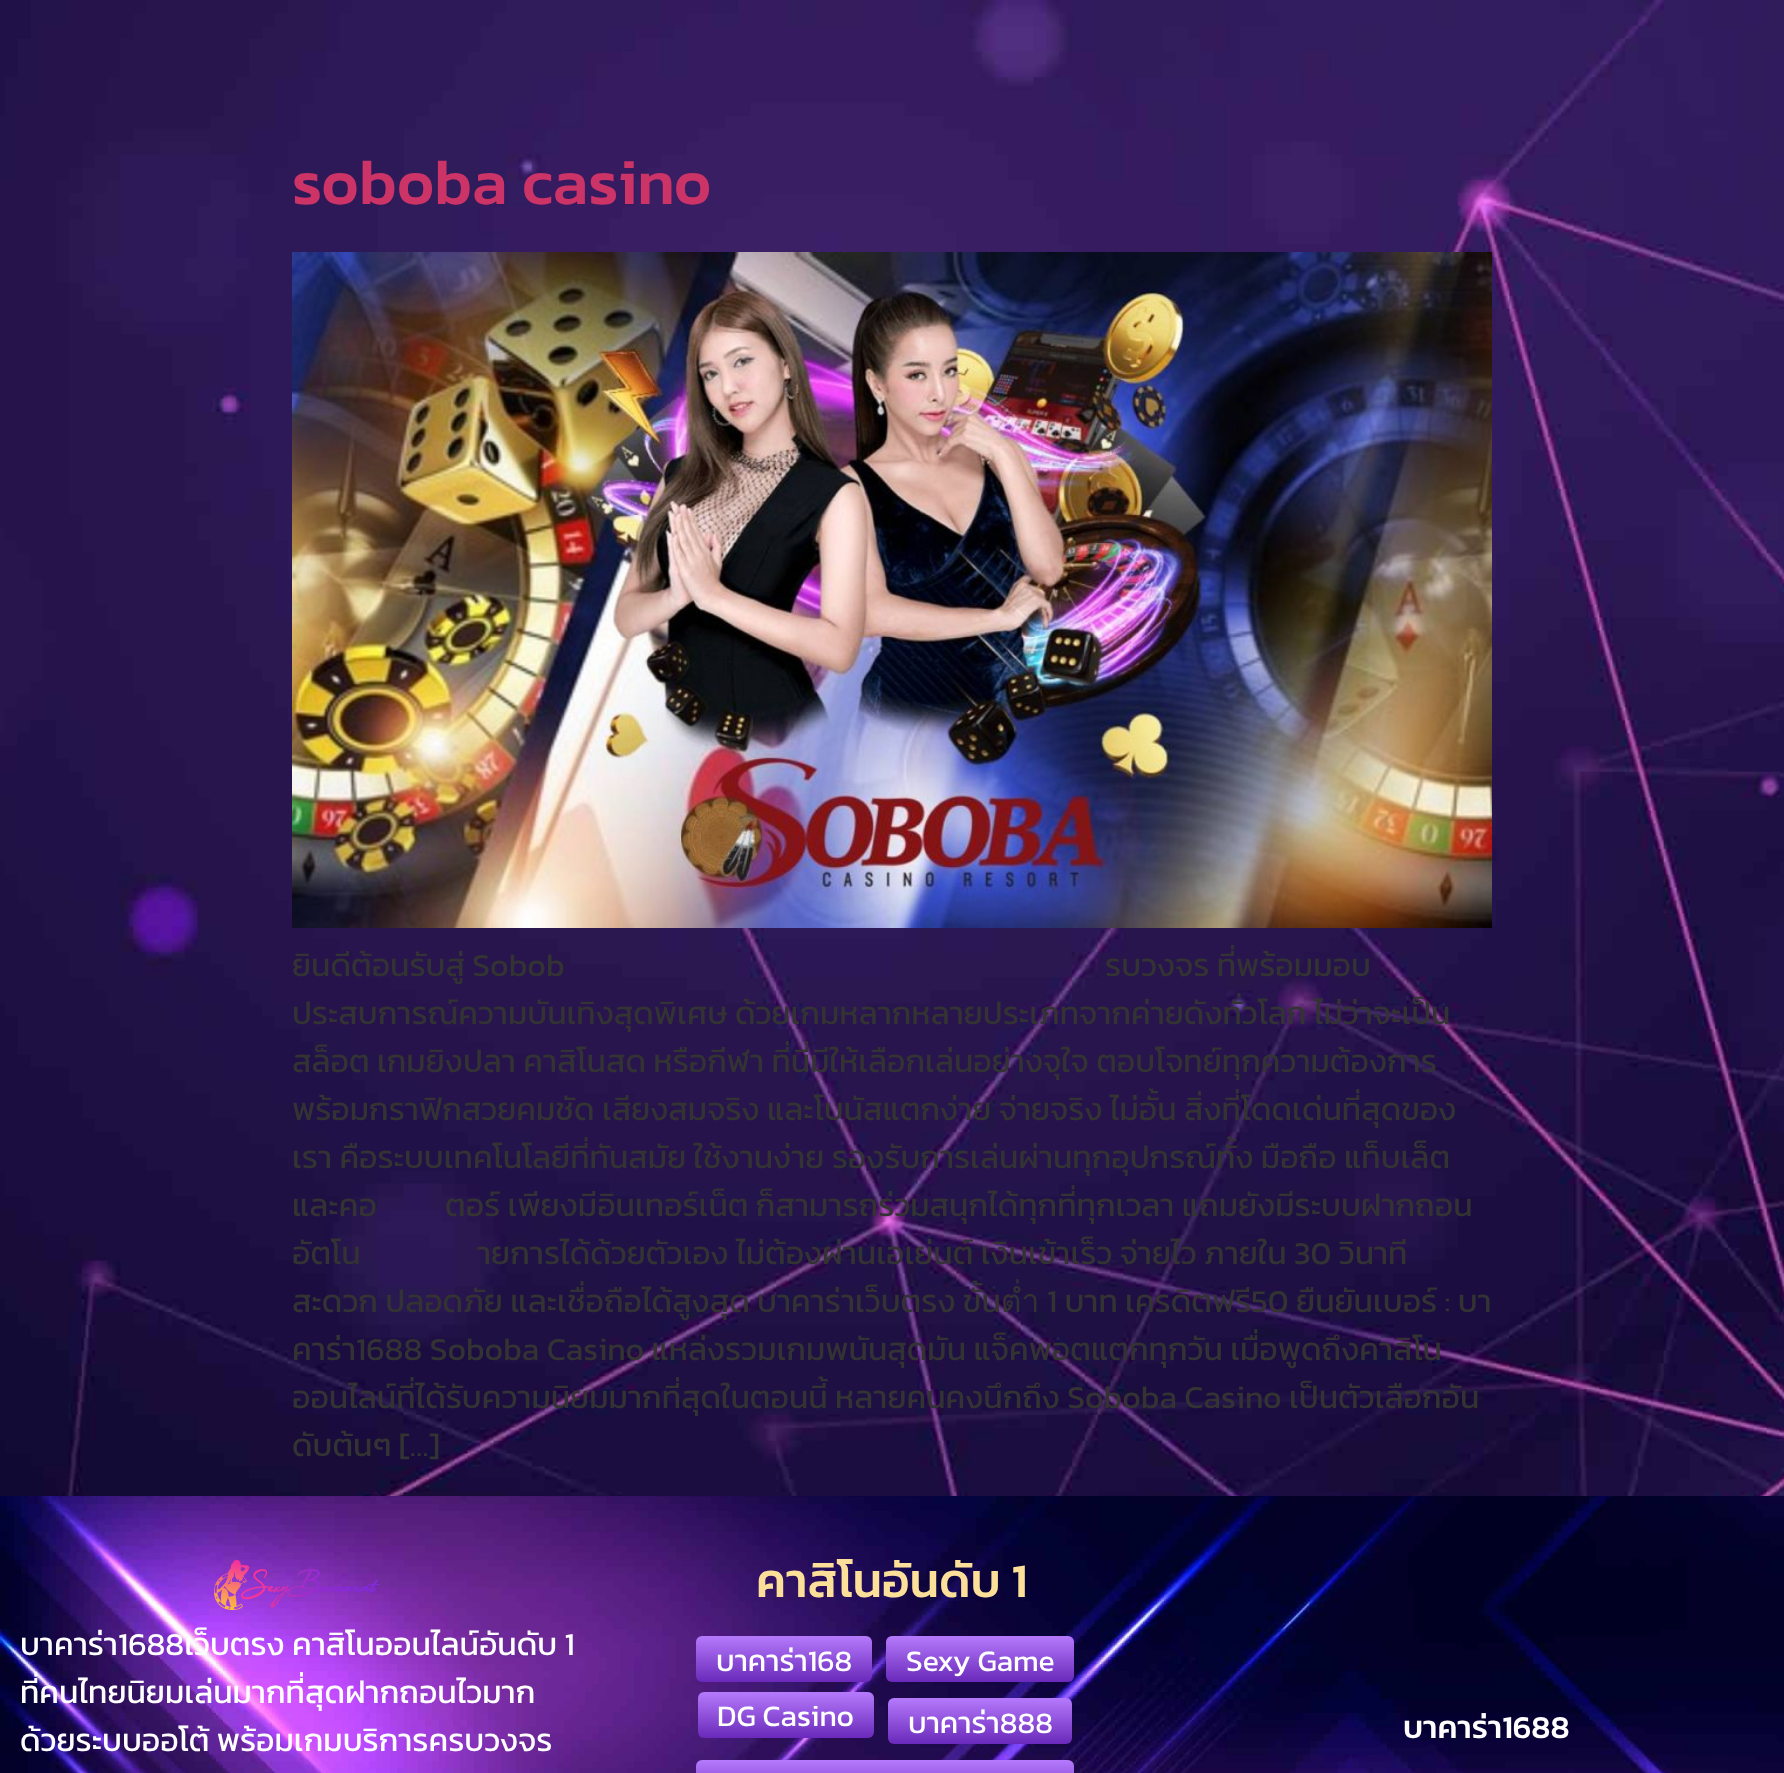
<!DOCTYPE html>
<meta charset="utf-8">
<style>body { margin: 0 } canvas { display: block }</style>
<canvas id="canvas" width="1784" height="1773"></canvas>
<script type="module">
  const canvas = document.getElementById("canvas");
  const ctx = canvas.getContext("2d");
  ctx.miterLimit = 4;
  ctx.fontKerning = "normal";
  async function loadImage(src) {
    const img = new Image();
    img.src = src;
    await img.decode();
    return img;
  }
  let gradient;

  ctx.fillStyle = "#ffffff";
  ctx.fillRect(0, 0, 1784, 1773);
  ctx.drawImage(await loadImage("img1.png"), 0, 0, 1784, 1496);
  ctx.font = "500 64px Kanit";
  ctx.fillStyle = "#cc3366";
  ctx.fillText("soboba casino", 292, 204);
  ctx.drawImage(await loadImage("img2.png"), 292, 252, 1200, 676);
  ctx.font = "32px Kanit";
  ctx.fillStyle = "#333333";
  ctx.fillText("ยินดีต้อนรับสู่ Sobob", 292, 976);
  ctx.fillText("รบวงจร ที่พร้อมมอบ", 1105, 976);
  ctx.fillText("ประสบการณ์ความบันเทิงสุดพิเศษ ด้วยเกมหลากหลายประเภทจากค่ายดังทั่วโลก ไม่ว่าจะเป็น", 292, 1024);
  ctx.fillText("สล็อต เกมยิงปลา คาสิโนสด หรือกีฬา ที่นี่มีให้เลือกเล่นอย่างจุใจ ตอบโจทย์ทุกความต้องการ", 292, 1072);
  ctx.fillText("พร้อมกราฟิกสวยคมชัด เสียงสมจริง และโบนัสแตกง่าย จ่ายจริง ไม่อั้น สิ่งที่โดดเด่นที่สุดของ", 292, 1120);
  ctx.fillText("เรา คือระบบเทคโนโลยีที่ทันสมัย ใช้งานง่าย รองรับการเล่นผ่านทุกอุปกรณ์ทั้ง มือถือ แท็บเล็ต", 292, 1168);
  ctx.fillText("และคอ", 292, 1216);
  ctx.fillText("ตอร์ เพียงมีอินเทอร์เน็ต ก็สามารถร่วมสนุกได้ทุกที่ทุกเวลา แถมยังมีระบบฝากถอน", 445, 1216);
  ctx.fillText("อัตโน", 292, 1264);
  ctx.fillText("ายการได้ด้วยตัวเอง ไม่ต้องผ่านเอเย่นต์ เงินเข้าเร็ว จ่ายไว ภายใน 30 วินาที", 477, 1264);
  ctx.fillText("สะดวก ปลอดภัย และเชื่อถือได้สูงสุด บาคาร่าเว็บตรง ขั้นต่ำ 1 บาท เครดิตฟรี50 ยืนยันเบอร์ : บา", 292, 1312);
  ctx.fillText("คาร่า1688 Soboba Casino แหล่งรวมเกมพนันสุดมัน แจ็คพอตแตกทุกวัน เมื่อพูดถึงคาสิโน", 292, 1360);
  ctx.fillText("ออนไลน์ที่ได้รับความนิยมมากที่สุดในตอนนี้ หลายคนคงนึกถึง Soboba Casino เป็นตัวเลือกอัน", 292, 1408);
  ctx.fillText("ดับต้นๆ […]", 292, 1456);
  ctx.drawImage(await loadImage("img3.png"), 0, 1496, 1784, 277);
  ctx.drawImage(await loadImage("img4.png"), 214, 1560, 166, 50);
  ctx.fillStyle = "#ffffff";
  ctx.fillText("บาคาร่า1688เว็บตรง คาสิโนออนไลน์อันดับ 1", 20, 1655);
  ctx.fillText("ที่คนไทยนิยมเล่นมากที่สุดฝากถอนไวมาก", 20, 1703);
  ctx.fillText("ด้วยระบบออโต้ พร้อมเกมบริการครบวงจร", 20, 1751);
  ctx.font = "500 48px Kanit";
  ctx.fillStyle = "#fcdf99";
  ctx.fillText("คาสิโนอันดับ 1", 756, 1597);
  gradient = ctx.createLinearGradient(784, 1636, 784, 1682);
  gradient.addColorStop(0, "#b57afc");
  gradient.addColorStop(1, "#6a29ba");
  ctx.fillStyle = gradient;
  ctx.beginPath();
  ctx.roundRect(696, 1636, 176, 46, 6);
  ctx.fill();
  ctx.font = "30px Kanit";
  ctx.fillStyle = "#ffffff";
  ctx.fillText("บาคาร่า168", 716, 1671);
  gradient = ctx.createLinearGradient(980, 1636, 980, 1682);
  gradient.addColorStop(0, "#b57afc");
  gradient.addColorStop(1, "#6a29ba");
  ctx.fillStyle = gradient;
  ctx.beginPath();
  ctx.roundRect(886, 1636, 188, 46, 6);
  ctx.fill();
  ctx.fillStyle = "#ffffff";
  ctx.fillText("Sexy Game", 906, 1671);
  gradient = ctx.createLinearGradient(786, 1692, 786, 1738);
  gradient.addColorStop(0, "#b57afc");
  gradient.addColorStop(1, "#6a29ba");
  ctx.fillStyle = gradient;
  ctx.beginPath();
  ctx.roundRect(698, 1692, 176, 46, 6);
  ctx.fill();
  ctx.fillStyle = "#ffffff";
  ctx.fillText("DG Casino", 717, 1726);
  gradient = ctx.createLinearGradient(980, 1698, 980, 1744);
  gradient.addColorStop(0, "#b57afc");
  gradient.addColorStop(1, "#6a29ba");
  ctx.fillStyle = gradient;
  ctx.beginPath();
  ctx.roundRect(888, 1698, 184, 46, 6);
  ctx.fill();
  ctx.fillStyle = "#ffffff";
  ctx.fillText("บาคาร่า888", 908, 1733);
  gradient = ctx.createLinearGradient(885, 1760, 885, 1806);
  gradient.addColorStop(0, "#b57afc");
  gradient.addColorStop(1, "#6a29ba");
  ctx.fillStyle = gradient;
  ctx.beginPath();
  ctx.roundRect(696, 1760, 378, 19, 6);
  ctx.fill();
  ctx.font = "500 32px Kanit";
  ctx.fillStyle = "#ffffff";
  ctx.fillText("บาคาร่า1688", 1403, 1738);
</script>
